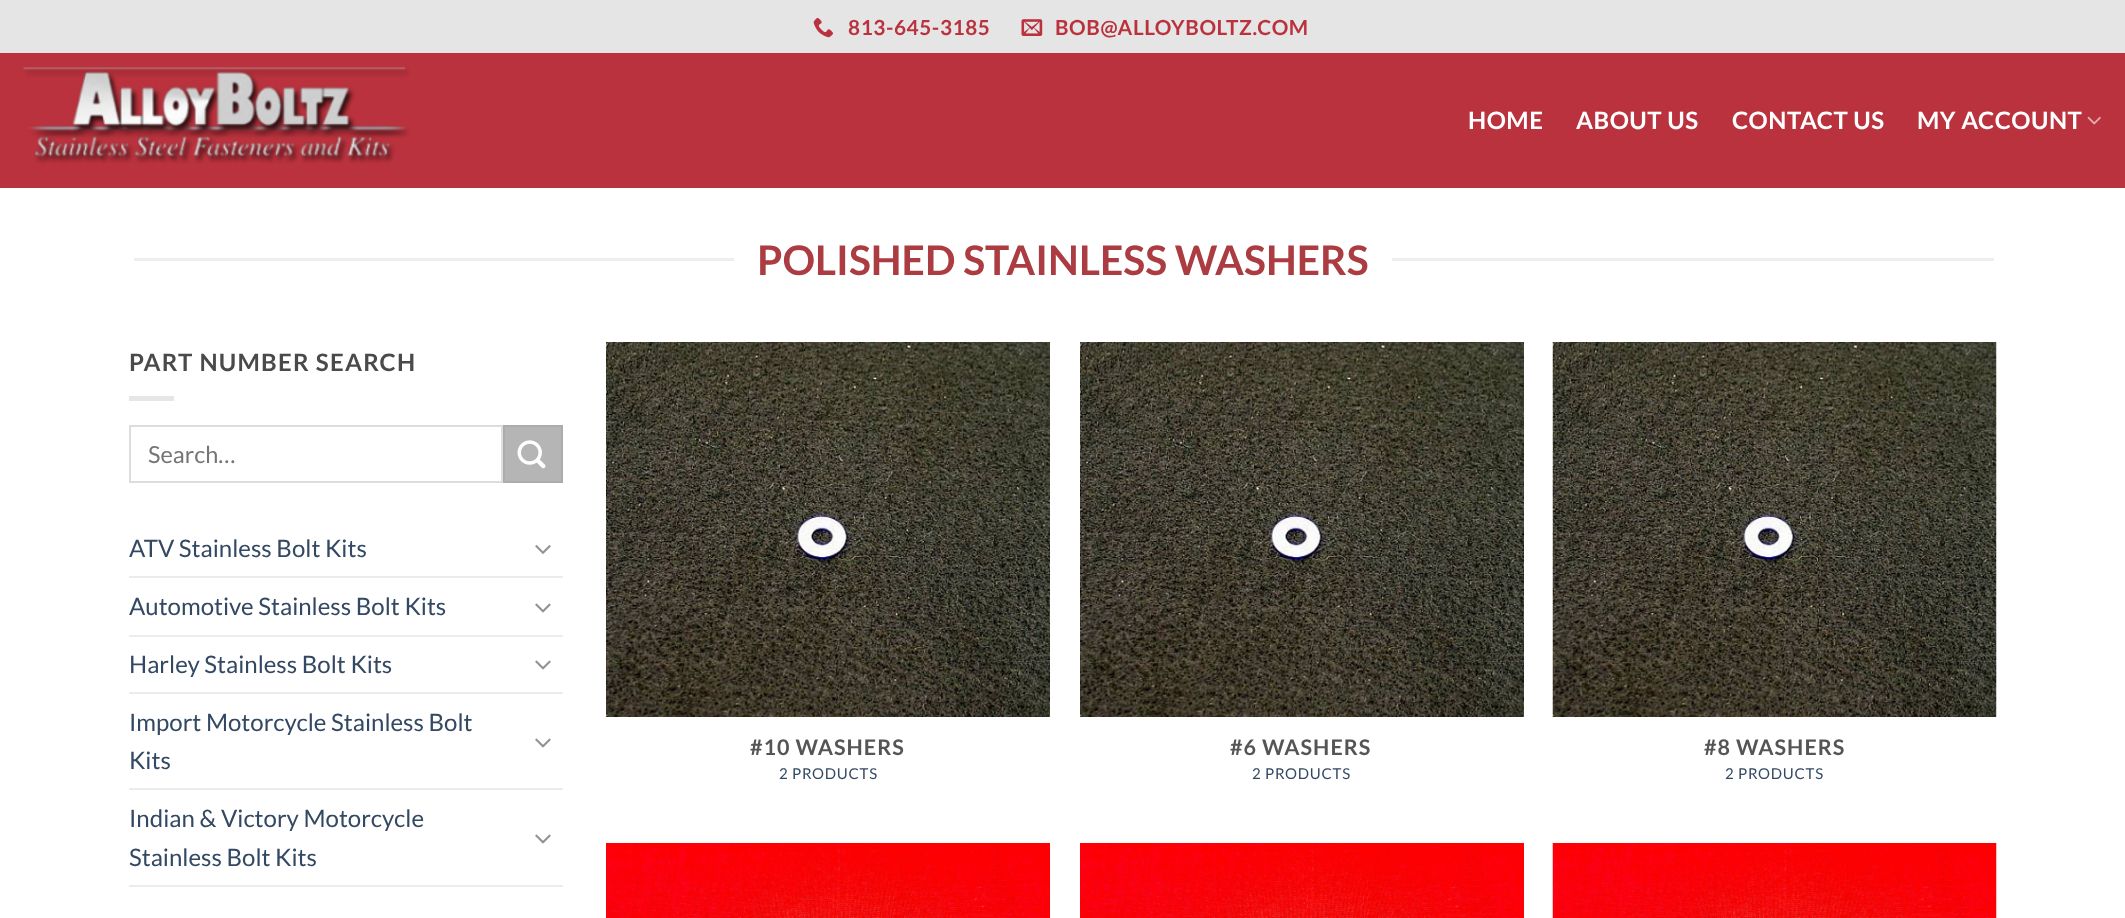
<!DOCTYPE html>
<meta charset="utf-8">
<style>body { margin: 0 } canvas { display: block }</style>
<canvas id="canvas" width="2125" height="918"></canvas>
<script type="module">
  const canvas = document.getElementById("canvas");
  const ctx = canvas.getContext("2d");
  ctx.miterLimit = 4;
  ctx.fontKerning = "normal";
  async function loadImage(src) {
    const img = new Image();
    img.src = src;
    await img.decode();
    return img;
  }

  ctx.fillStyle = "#ffffff";
  ctx.fillRect(0, 0, 2125, 918);
  ctx.fillStyle = "#e5e5e5";
  ctx.fillRect(0, 0, 2125, 53);
  ctx.drawImage(await loadImage("img1.png"), 813, 17, 20, 21);
  ctx.letterSpacing = "0.6px";
  ctx.font = "bold 20.75px Lato";
  ctx.fillStyle = "#ba323d";
  ctx.fillText("813-645-3185", 848, 35);
  ctx.drawImage(await loadImage("img2.png"), 1021, 19, 22, 17);
  ctx.fillText("BOB@ALLOYBOLTZ.COM", 1055, 35);
  ctx.fillRect(0, 53, 2125, 135);
  ctx.drawImage(await loadImage("img3.png"), 23, 67, 387, 97);
  ctx.letterSpacing = "0.5px";
  ctx.font = "bold 24px Lato";
  ctx.fillStyle = "#ffffff";
  ctx.fillText("HOME", 1468, 129);
  ctx.fillText("ABOUT US", 1576, 129);
  ctx.fillText("CONTACT US", 1732, 129);
  ctx.fillText("MY ACCOUNT", 1917, 129);
  ctx.drawImage(await loadImage("img4.png"), 2087, 116, 14, 9);
  ctx.fillStyle = "#eeeeee";
  ctx.fillRect(134, 258, 600, 3);
  ctx.letterSpacing = "0px";
  ctx.font = "bold 40.75px Lato";
  ctx.fillStyle = "#ab3c41";
  ctx.fillText("POLISHED STAINLESS WASHERS", 757, 275);
  ctx.fillStyle = "#eeeeee";
  ctx.fillRect(1392, 258, 602, 3);
  ctx.letterSpacing = "1.25px";
  ctx.font = "bold 24px Lato";
  ctx.fillStyle = "#4a4a4a";
  ctx.fillText("PART NUMBER SEARCH", 129, 371);
  ctx.fillStyle = "#e6e6e6";
  ctx.fillRect(129, 396, 45, 5);
  ctx.strokeStyle = "#dddddd";
  ctx.lineWidth = 2;
  ctx.strokeRect(130, 426, 372, 56);
  ctx.letterSpacing = "0px";
  ctx.font = "23.5px Lato";
  ctx.fillStyle = "#757575";
  ctx.fillText("Search…", 148, 463);
  ctx.fillStyle = "#b5b5b5";
  ctx.beginPath();
  ctx.rect(504, 426, 58, 56);
  ctx.fill();
  ctx.strokeStyle = "#acacac";
  ctx.stroke();
  ctx.drawImage(await loadImage("img5.png"), 517, 440, 29, 29);
  ctx.font = "24px Lato";
  ctx.fillStyle = "#334862";
  ctx.fillText("ATV Stainless Bolt Kits", 129, 557);
  ctx.drawImage(await loadImage("img6.png"), 535, 545, 16, 9);
  ctx.fillStyle = "#ececec";
  ctx.fillRect(129, 576, 434, 2);
  ctx.fillStyle = "#334862";
  ctx.fillText("Automotive Stainless Bolt Kits", 129, 615);
  ctx.drawImage(await loadImage("img7.png"), 535, 603, 16, 10);
  ctx.fillStyle = "#ececec";
  ctx.fillRect(129, 635, 434, 2);
  ctx.fillStyle = "#334862";
  ctx.fillText("Harley Stainless Bolt Kits", 129, 673);
  ctx.drawImage(await loadImage("img7.png"), 535, 660, 16, 10);
  ctx.fillStyle = "#ececec";
  ctx.fillRect(129, 692, 434, 2);
  ctx.fillStyle = "#334862";
  ctx.fillText("Import Motorcycle Stainless Bolt", 129, 731);
  ctx.fillText("Kits", 129, 769);
  ctx.drawImage(await loadImage("img7.png"), 535, 738, 16, 10);
  ctx.fillStyle = "#ececec";
  ctx.fillRect(129, 788, 434, 2);
  ctx.fillStyle = "#334862";
  ctx.fillText("Indian & Victory Motorcycle", 129, 827);
  ctx.fillText("Stainless Bolt Kits", 129, 866);
  ctx.drawImage(await loadImage("img7.png"), 535, 834, 16, 10);
  ctx.fillStyle = "#ececec";
  ctx.fillRect(129, 885, 434, 2);
  ctx.drawImage(await loadImage("img8.png"), 606, 342, 444, 375);
  ctx.letterSpacing = "1px";
  ctx.font = "bold 21.5px Lato";
  ctx.fillStyle = "#555555";
  ctx.fillText("#10 WASHERS", 750, 755);
  ctx.letterSpacing = "0.75px";
  ctx.font = "15px Lato";
  ctx.fillStyle = "#334862";
  ctx.fillText("2 PRODUCTS", 779, 779);
  ctx.drawImage(await loadImage("img8.png"), 1080, 342, 444, 375);
  ctx.letterSpacing = "1px";
  ctx.font = "bold 21.5px Lato";
  ctx.fillStyle = "#555555";
  ctx.fillText("#6 WASHERS", 1230, 755);
  ctx.letterSpacing = "0.75px";
  ctx.font = "15px Lato";
  ctx.fillStyle = "#334862";
  ctx.fillText("2 PRODUCTS", 1252, 779);
  ctx.drawImage(await loadImage("img9.png"), 1552, 342, 445, 375);
  ctx.letterSpacing = "1px";
  ctx.font = "bold 21.5px Lato";
  ctx.fillStyle = "#555555";
  ctx.fillText("#8 WASHERS", 1704, 755);
  ctx.letterSpacing = "0.75px";
  ctx.font = "15px Lato";
  ctx.fillStyle = "#334862";
  ctx.fillText("2 PRODUCTS", 1725, 779);
  ctx.drawImage(await loadImage("img10.png"), 606, 843, 444, 75);
  ctx.drawImage(await loadImage("img10.png"), 1080, 843, 444, 75);
  ctx.drawImage(await loadImage("img11.png"), 1552, 843, 445, 75);
</script>
